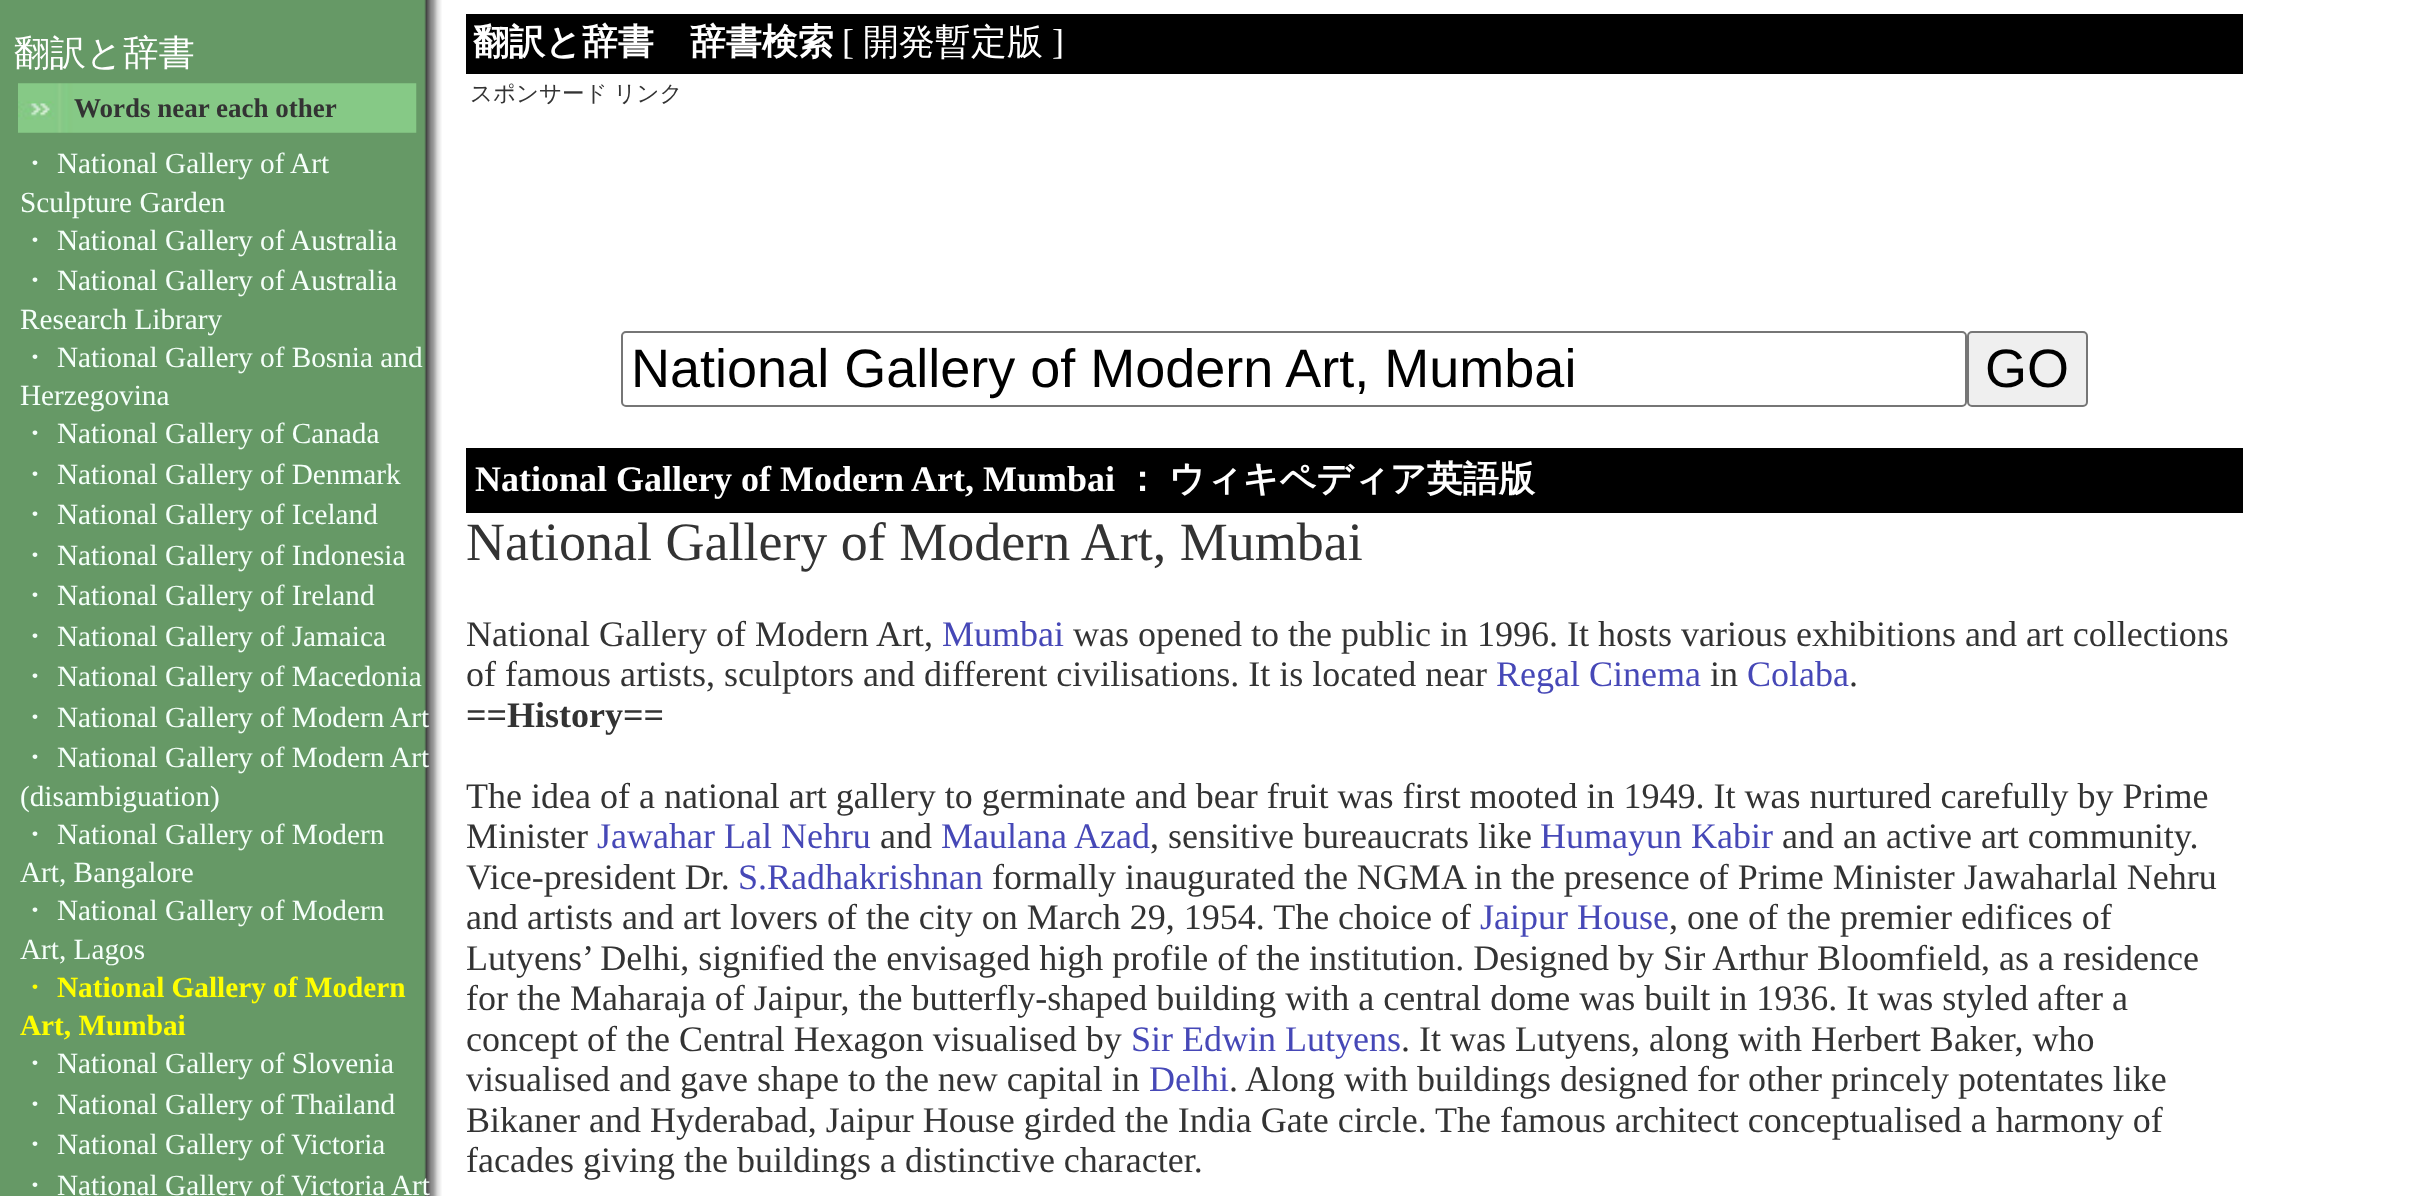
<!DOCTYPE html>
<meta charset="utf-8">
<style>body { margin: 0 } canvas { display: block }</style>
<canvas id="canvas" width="2417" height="1196"></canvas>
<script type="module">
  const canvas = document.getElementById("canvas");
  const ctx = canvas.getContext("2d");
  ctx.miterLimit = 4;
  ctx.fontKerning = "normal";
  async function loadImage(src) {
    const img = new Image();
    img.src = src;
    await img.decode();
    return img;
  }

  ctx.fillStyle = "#ffffff";
  ctx.fillRect(0, 0, 2417, 1196);
  ctx.drawImage(await loadImage("img1.png"), 0, 0, 442, 1196);
  ctx.font = "500 36px WenQuanYi Zen Hei";
  ctx.fillText("翻訳と辞書", 14, 65);
  ctx.drawImage(await loadImage("img2.png"), 18, 83, 399, 50);
  ctx.font = "bold 27px Liberation Serif";
  ctx.fillStyle = "#333333";
  ctx.fillText("Words near each other", 74, 117);
  ctx.font = "500 29.25px WenQuanYi Zen Hei";
  ctx.fillStyle = "#f5fffa";
  ctx.fillText("・", 20, 173);
  ctx.font = "29.25px Liberation Serif";
  ctx.fillText("National Gallery of Art", 57, 173);
  ctx.fillText("Sculpture Garden", 20, 212);
  ctx.font = "500 29.25px WenQuanYi Zen Hei";
  ctx.fillText("・", 20, 250);
  ctx.font = "29.25px Liberation Serif";
  ctx.fillText("National Gallery of Australia", 57, 250);
  ctx.font = "500 29.25px WenQuanYi Zen Hei";
  ctx.fillText("・", 20, 290);
  ctx.font = "29.25px Liberation Serif";
  ctx.fillText("National Gallery of Australia", 57, 290);
  ctx.fillText("Research Library", 20, 329);
  ctx.font = "500 29.25px WenQuanYi Zen Hei";
  ctx.fillText("・", 20, 367);
  ctx.font = "29.25px Liberation Serif";
  ctx.fillText("National Gallery of Bosnia and", 57, 367);
  ctx.fillText("Herzegovina", 20, 405);
  ctx.font = "500 29.25px WenQuanYi Zen Hei";
  ctx.fillText("・", 20, 443);
  ctx.font = "29.25px Liberation Serif";
  ctx.fillText("National Gallery of Canada", 57, 443);
  ctx.font = "500 29.25px WenQuanYi Zen Hei";
  ctx.fillText("・", 20, 484);
  ctx.font = "29.25px Liberation Serif";
  ctx.fillText("National Gallery of Denmark", 57, 484);
  ctx.font = "500 29.25px WenQuanYi Zen Hei";
  ctx.fillText("・", 20, 524);
  ctx.font = "29.25px Liberation Serif";
  ctx.fillText("National Gallery of Iceland", 57, 524);
  ctx.font = "500 29.25px WenQuanYi Zen Hei";
  ctx.fillText("・", 20, 565);
  ctx.font = "29.25px Liberation Serif";
  ctx.fillText("National Gallery of Indonesia", 57, 565);
  ctx.font = "500 29.25px WenQuanYi Zen Hei";
  ctx.fillText("・", 20, 605);
  ctx.font = "29.25px Liberation Serif";
  ctx.fillText("National Gallery of Ireland", 57, 605);
  ctx.font = "500 29.25px WenQuanYi Zen Hei";
  ctx.fillText("・", 20, 646);
  ctx.font = "29.25px Liberation Serif";
  ctx.fillText("National Gallery of Jamaica", 57, 646);
  ctx.font = "500 29.25px WenQuanYi Zen Hei";
  ctx.fillText("・", 20, 686);
  ctx.font = "29.25px Liberation Serif";
  ctx.fillText("National Gallery of Macedonia", 57, 686);
  ctx.font = "500 29.25px WenQuanYi Zen Hei";
  ctx.fillText("・", 20, 727);
  ctx.font = "29.25px Liberation Serif";
  ctx.fillText("National Gallery of Modern Art", 57, 727);
  ctx.font = "500 29.25px WenQuanYi Zen Hei";
  ctx.fillText("・", 20, 767);
  ctx.font = "29.25px Liberation Serif";
  ctx.fillText("National Gallery of Modern Art", 57, 767);
  ctx.fillText("(disambiguation)", 20, 806);
  ctx.font = "500 29.25px WenQuanYi Zen Hei";
  ctx.fillText("・", 20, 844);
  ctx.font = "29.25px Liberation Serif";
  ctx.fillText("National Gallery of Modern", 57, 844);
  ctx.fillText("Art, Bangalore", 20, 882);
  ctx.font = "500 29.25px WenQuanYi Zen Hei";
  ctx.fillText("・", 20, 920);
  ctx.font = "29.25px Liberation Serif";
  ctx.fillText("National Gallery of Modern", 57, 920);
  ctx.fillText("Art, Lagos", 20, 959);
  ctx.font = "500 29.25px WenQuanYi Zen Hei";
  ctx.fillStyle = "#ffff00";
  ctx.fillText("・", 20, 997);
  ctx.font = "bold 29.25px Liberation Serif";
  ctx.fillText("National Gallery of Modern", 57, 997);
  ctx.fillText("Art, Mumbai", 20, 1035);
  ctx.font = "500 29.25px WenQuanYi Zen Hei";
  ctx.fillStyle = "#f5fffa";
  ctx.fillText("・", 20, 1073);
  ctx.font = "29.25px Liberation Serif";
  ctx.fillText("National Gallery of Slovenia", 57, 1073);
  ctx.font = "500 29.25px WenQuanYi Zen Hei";
  ctx.fillText("・", 20, 1114);
  ctx.font = "29.25px Liberation Serif";
  ctx.fillText("National Gallery of Thailand", 57, 1114);
  ctx.font = "500 29.25px WenQuanYi Zen Hei";
  ctx.fillText("・", 20, 1154);
  ctx.font = "29.25px Liberation Serif";
  ctx.fillText("National Gallery of Victoria", 57, 1154);
  ctx.font = "500 29.25px WenQuanYi Zen Hei";
  ctx.fillText("・", 20, 1195);
  ctx.font = "29.25px Liberation Serif";
  ctx.fillText("National Gallery of Victoria Art", 57, 1195);
  ctx.fillStyle = "#000000";
  ctx.fillRect(466, 14, 1777, 60);
  ctx.font = "bold 36px WenQuanYi Zen Hei";
  ctx.fillStyle = "#ffffff";
  ctx.fillText("翻訳と辞書　辞書検索", 473, 54);
  ctx.font = "36px Liberation Serif";
  ctx.fillText("[", 842, 54);
  ctx.font = "500 36px WenQuanYi Zen Hei";
  ctx.fillText("開発暫定版", 863, 54);
  ctx.font = "36px Liberation Serif";
  ctx.fillText("]", 1052, 54);
  ctx.wordSpacing = "-1px";
  ctx.font = "500 22.5px WenQuanYi Zen Hei";
  ctx.fillStyle = "#333333";
  ctx.fillText("スポンサード リンク", 470, 101);
  ctx.beginPath();
  ctx.roundRect(622, 332, 1344, 74, 4);
  ctx.strokeStyle = "#767676";
  ctx.lineWidth = 2;
  ctx.stroke();
  ctx.wordSpacing = "0px";
  ctx.font = "54px Liberation Sans";
  ctx.fillStyle = "#000000";
  ctx.fillText("National Gallery of Modern Art, Mumbai", 631, 387);
  ctx.fillStyle = "#efefef";
  ctx.beginPath();
  ctx.roundRect(1968, 332, 119, 74, 4);
  ctx.fill();
  ctx.stroke();
  ctx.fillStyle = "#000000";
  ctx.fillText("GO", 1985, 387);
  ctx.fillRect(466, 448, 1777, 65);
  ctx.font = "bold 36px Liberation Serif";
  ctx.fillStyle = "#ffffff";
  ctx.fillText("National Gallery of Modern Art, Mumbai", 475, 491);
  ctx.wordSpacing = "-2px";
  ctx.font = "bold 36px WenQuanYi Zen Hei";
  ctx.fillText("： ウィキペディア英語版", 1124, 491);
  ctx.wordSpacing = "0px";
  ctx.font = "54px Liberation Serif";
  ctx.fillStyle = "#333333";
  ctx.fillText("National Gallery of Modern Art, Mumbai", 466, 560);
  ctx.font = "36px Liberation Serif";
  ctx.fillText("National Gallery of Modern Art,", 466, 646);
  ctx.fillStyle = "#4648b7";
  ctx.fillText("Mumbai", 942, 646);
  ctx.fillStyle = "#333333";
  ctx.fillText("was opened to the public in 1996. It hosts various exhibitions and art collections", 1073, 646);
  ctx.fillText("of famous artists, sculptors and different civilisations. It is located near", 466, 686);
  ctx.fillStyle = "#4648b7";
  ctx.fillText("Regal Cinema", 1496, 686);
  ctx.fillStyle = "#333333";
  ctx.fillText("in", 1710, 686);
  ctx.fillStyle = "#4648b7";
  ctx.fillText("Colaba", 1747, 686);
  ctx.fillStyle = "#333333";
  ctx.fillText(".", 1849, 686);
  ctx.font = "bold 36px Liberation Serif";
  ctx.fillText("==History==", 466, 727);
  ctx.font = "36px Liberation Serif";
  ctx.fillText("The idea of a national art gallery to germinate and bear fruit was first mooted in 1949. It was nurtured carefully by Prime", 466, 808);
  ctx.fillText("Minister", 466, 848);
  ctx.fillStyle = "#4648b7";
  ctx.fillText("Jawahar Lal Nehru", 597, 848);
  ctx.fillStyle = "#333333";
  ctx.fillText("and", 880, 848);
  ctx.fillStyle = "#4648b7";
  ctx.fillText("Maulana Azad", 941, 848);
  ctx.fillStyle = "#333333";
  ctx.fillText(", sensitive bureaucrats like", 1150, 848);
  ctx.fillStyle = "#4648b7";
  ctx.fillText("Humayun Kabir", 1540, 848);
  ctx.fillStyle = "#333333";
  ctx.fillText("and an active art community.", 1782, 848);
  ctx.fillText("Vice-president Dr.", 466, 889);
  ctx.fillStyle = "#4648b7";
  ctx.fillText("S.Radhakrishnan", 738, 889);
  ctx.fillStyle = "#333333";
  ctx.fillText("formally inaugurated the NGMA in the presence of Prime Minister Jawaharlal Nehru", 992, 889);
  ctx.fillText("and artists and art lovers of the city on March 29, 1954. The choice of", 466, 929);
  ctx.fillStyle = "#4648b7";
  ctx.fillText("Jaipur House", 1480, 929);
  ctx.fillStyle = "#333333";
  ctx.fillText(", one of the premier edifices of", 1669, 929);
  ctx.fillText("Lutyens’ Delhi, signified the envisaged high profile of the institution. Designed by Sir Arthur Bloomfield, as a residence", 466, 970);
  ctx.fillText("for the Maharaja of Jaipur, the butterfly-shaped building with a central dome was built in 1936. It was styled after a", 466, 1010);
  ctx.fillText("concept of the Central Hexagon visualised by", 466, 1051);
  ctx.fillStyle = "#4648b7";
  ctx.fillText("Sir Edwin Lutyens", 1131, 1051);
  ctx.fillStyle = "#333333";
  ctx.fillText(". It was Lutyens, along with Herbert Baker, who", 1401, 1051);
  ctx.fillText("visualised and gave shape to the new capital in", 466, 1091);
  ctx.fillStyle = "#4648b7";
  ctx.fillText("Delhi", 1149, 1091);
  ctx.fillStyle = "#333333";
  ctx.fillText(". Along with buildings designed for other princely potentates like", 1229, 1091);
  ctx.fillText("Bikaner and Hyderabad, Jaipur House girded the India Gate circle. The famous architect conceptualised a harmony of", 466, 1132);
  ctx.fillText("facades giving the buildings a distinctive character.", 466, 1172);
</script>
